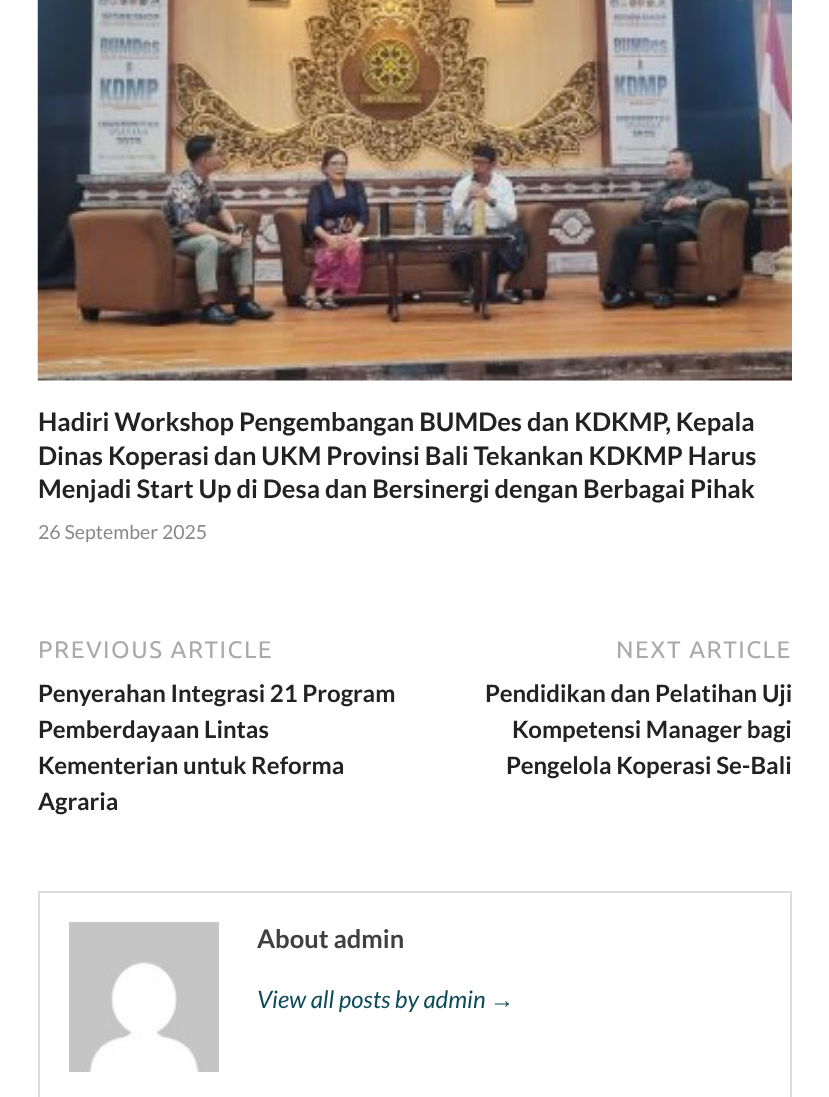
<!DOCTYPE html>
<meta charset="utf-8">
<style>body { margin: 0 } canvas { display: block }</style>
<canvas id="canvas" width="829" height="1097"></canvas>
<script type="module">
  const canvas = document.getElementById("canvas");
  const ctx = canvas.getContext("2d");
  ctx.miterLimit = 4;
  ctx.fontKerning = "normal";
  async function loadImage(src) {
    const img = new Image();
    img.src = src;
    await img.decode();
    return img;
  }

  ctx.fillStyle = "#ffffff";
  ctx.fillRect(0, 0, 829, 1097);
  ctx.drawImage(await loadImage("img1.png"), 37, 0, 755, 381);
  ctx.font = "bold 25.5px Lato";
  ctx.fillStyle = "#222222";
  ctx.fillText("Hadiri Workshop Pengembangan BUMDes dan KDKMP, Kepala", 38, 431);
  ctx.fillText("Dinas Koperasi dan UKM Provinsi Bali Tekankan KDKMP Harus", 38, 465);
  ctx.fillText("Menjadi Start Up di Desa dan Bersinergi dengan Berbagai Pihak", 38, 498);
  ctx.font = "19.5px Lato";
  ctx.fillStyle = "#888888";
  ctx.fillText("26 September 2025", 38, 539);
  ctx.letterSpacing = "1.5px";
  ctx.font = "24px Ubuntu";
  ctx.fillStyle = "#aaaaaa";
  ctx.fillText("PREVIOUS ARTICLE", 38, 658);
  ctx.letterSpacing = "0px";
  ctx.font = "bold 24px Lato";
  ctx.fillStyle = "#222222";
  ctx.fillText("Penyerahan Integrasi 21 Program", 38, 702);
  ctx.fillText("Pemberdayaan Lintas", 38, 738);
  ctx.fillText("Kementerian untuk Reforma", 38, 774);
  ctx.fillText("Agraria", 38, 810);
  ctx.letterSpacing = "1.5px";
  ctx.font = "24px Ubuntu";
  ctx.fillStyle = "#aaaaaa";
  ctx.fillText("NEXT ARTICLE", 616, 658);
  ctx.letterSpacing = "0px";
  ctx.font = "bold 24px Lato";
  ctx.fillStyle = "#222222";
  ctx.fillText("Pendidikan dan Pelatihan Uji", 485, 702);
  ctx.fillText("Kompetensi Manager bagi", 512, 738);
  ctx.fillText("Pengelola Koperasi Se-Bali", 506, 774);
  ctx.strokeStyle = "#dddddd";
  ctx.lineWidth = 2;
  ctx.strokeRect(39, 892, 752, 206);
  ctx.drawImage(await loadImage("img2.png"), 69, 922, 150, 150);
  ctx.font = "bold 25.5px Lato";
  ctx.fillStyle = "#404040";
  ctx.fillText("About admin", 257, 948);
  ctx.font = "italic 24px Lato";
  ctx.fillStyle = "#0c4b59";
  ctx.fillText("View all posts by admin", 257, 1008);
  ctx.font = "italic 24px Liberation Sans";
  ctx.fillText("→", 490, 1008);
</script>
